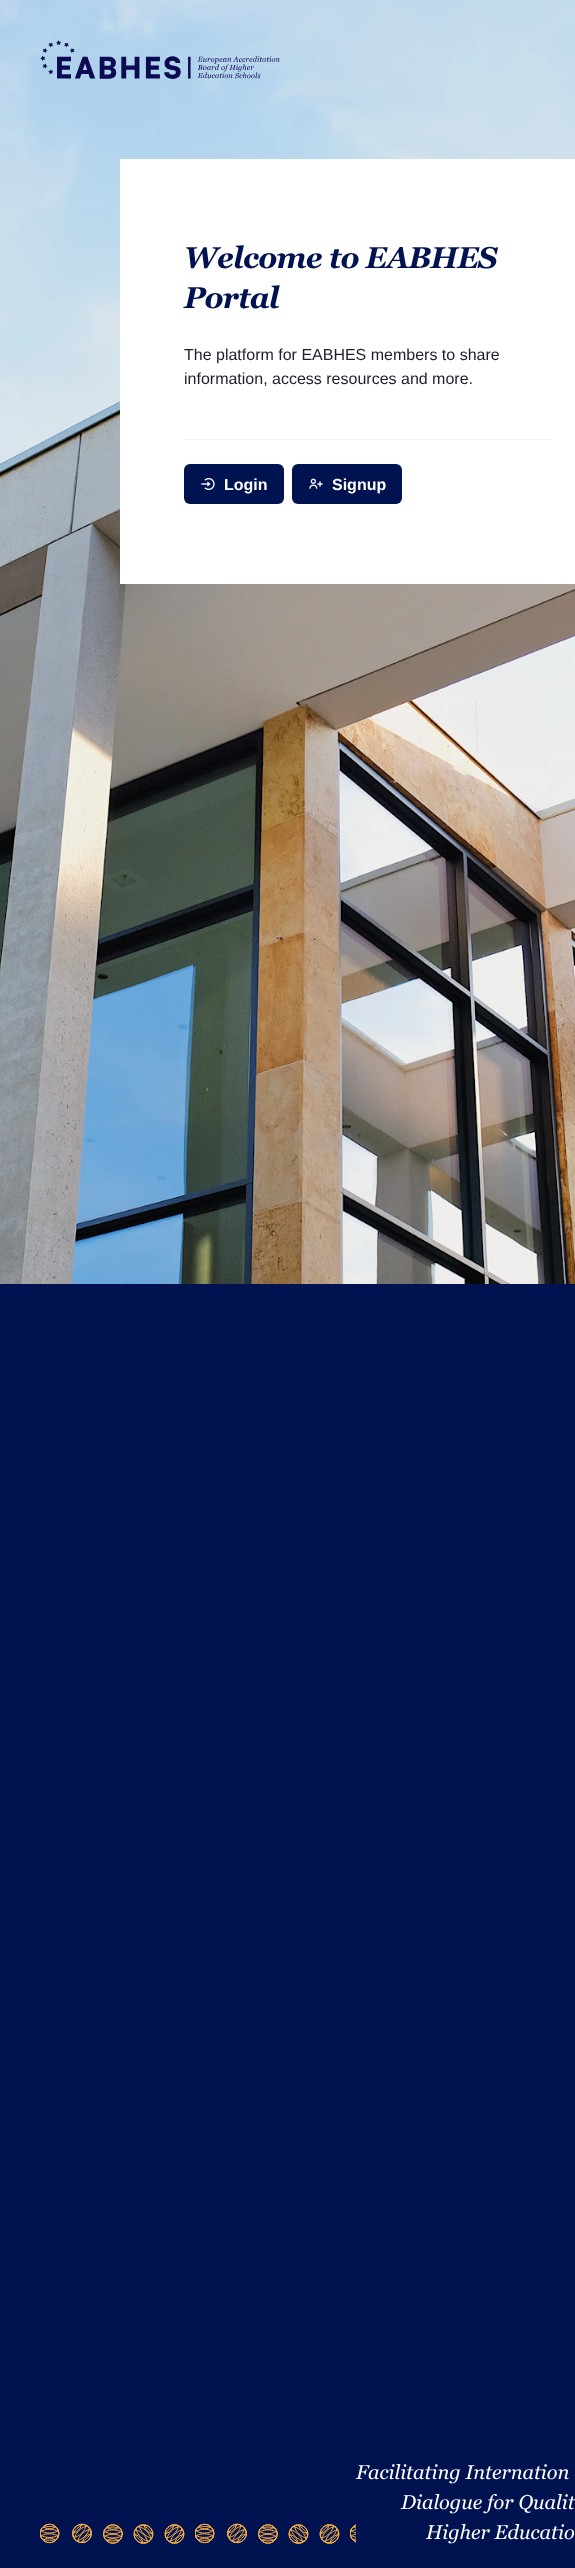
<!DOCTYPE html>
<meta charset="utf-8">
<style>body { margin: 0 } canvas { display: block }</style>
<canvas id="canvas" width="575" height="2568"></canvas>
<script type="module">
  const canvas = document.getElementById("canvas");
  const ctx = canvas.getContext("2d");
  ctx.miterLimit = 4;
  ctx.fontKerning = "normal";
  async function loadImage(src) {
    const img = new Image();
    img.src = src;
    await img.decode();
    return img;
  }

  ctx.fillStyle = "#001250";
  ctx.fillRect(0, 0, 575, 2568);
  ctx.drawImage(await loadImage("img1.png"), 0, 0, 575, 1284);
  ctx.drawImage(await loadImage("img2.png"), 40, 40, 240, 39);
  ctx.fillStyle = "#ffffff";
  ctx.fillRect(120, 159, 455, 425);
  ctx.letterSpacing = "-0.75px";
  ctx.font = "italic bold 30px Georgia";
  ctx.fillStyle = "#001250";
  ctx.fillText("Welcome to EABHES", 184, 268);
  ctx.fillText("Portal", 184, 308);
  ctx.letterSpacing = "0px";
  ctx.font = "16px Liberation Sans";
  ctx.fillStyle = "#1a202c";
  ctx.fillText("The platform for EABHES members to share", 184, 360);
  ctx.fillText("information, access resources and more.", 184, 384);
  ctx.fillStyle = "#eef1f6";
  ctx.fillRect(184, 439, 367, 1);
  ctx.fillStyle = "#001250";
  ctx.beginPath();
  ctx.roundRect(184, 464, 100, 40, 6);
  ctx.fill();
  ctx.drawImage(await loadImage("img3.png"), 201, 478, 14, 12);
  ctx.font = "bold 16px Liberation Sans";
  ctx.fillStyle = "#ffffff";
  ctx.fillText("Login", 224, 490);
  ctx.fillStyle = "#001250";
  ctx.beginPath();
  ctx.roundRect(292, 464, 110, 40, 6);
  ctx.fill();
  ctx.drawImage(await loadImage("img4.png"), 309, 478, 14, 11);
  ctx.fillStyle = "#ffffff";
  ctx.fillText("Signup", 332, 490);
  ctx.drawImage(await loadImage("img5.png"), 40, 2523, 316, 21);
  ctx.font = "italic 20px Georgia";
  ctx.fillText("Facilitating Internation", 356, 2479);
  ctx.fillText("Dialogue for Qualit", 401, 2509);
  ctx.fillText("Higher Educatio", 426, 2539);
</script>
